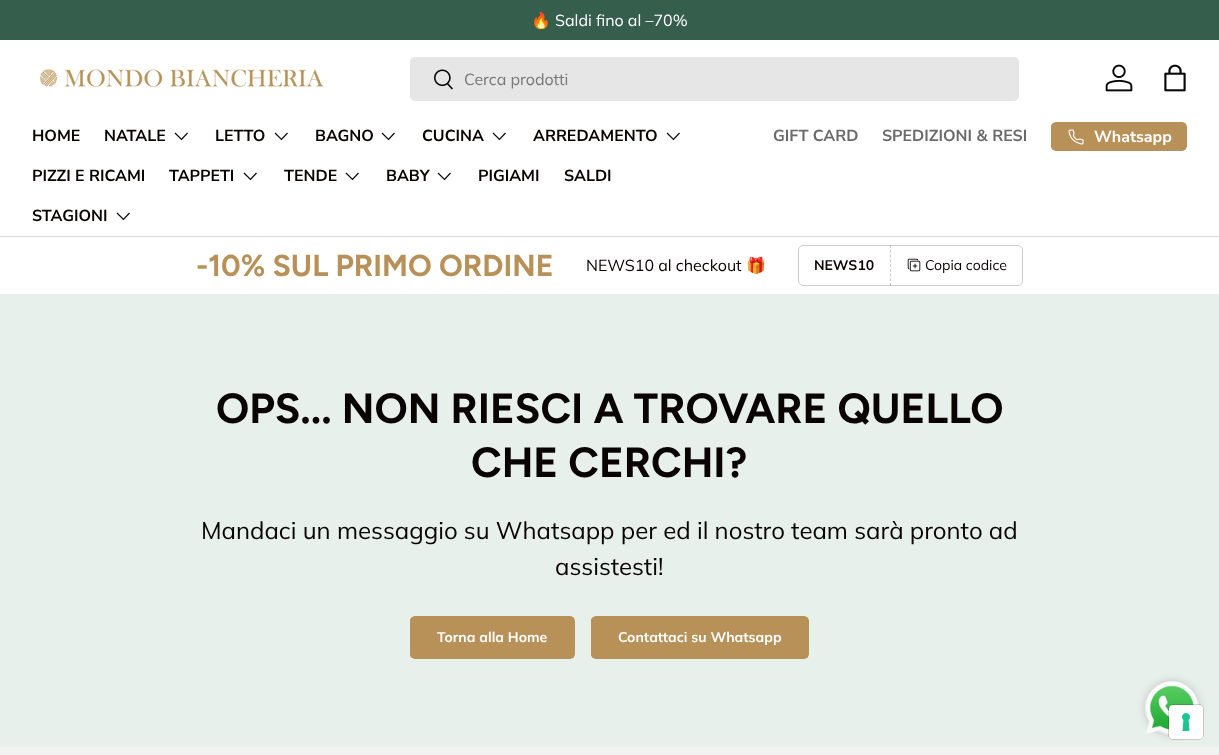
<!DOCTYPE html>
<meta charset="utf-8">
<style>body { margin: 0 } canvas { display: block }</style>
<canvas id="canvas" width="1219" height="755"></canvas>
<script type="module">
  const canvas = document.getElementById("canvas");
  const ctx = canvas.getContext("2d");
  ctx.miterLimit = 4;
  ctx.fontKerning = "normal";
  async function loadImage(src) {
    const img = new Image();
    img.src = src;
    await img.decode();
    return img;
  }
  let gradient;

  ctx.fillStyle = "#ffffff";
  ctx.fillRect(0, 0, 1219, 755);
  ctx.fillStyle = "#355e4d";
  ctx.fillRect(0, 0, 1219, 40);
  ctx.font = "16px Noto Color Emoji";
  ctx.fillStyle = "#ffffff";
  ctx.fillText("🔥", 531, 26);
  ctx.font = "16px Muli";
  ctx.fillText("Saldi fino al –70%", 555, 26);
  ctx.fillStyle = "#dadada";
  ctx.fillRect(0, 236, 1219, 1);
  ctx.drawImage(await loadImage("img1.png"), 39, 64, 286, 25);
  ctx.fillStyle = "#e6e6e6";
  ctx.beginPath();
  ctx.roundRect(410, 57, 609, 44, 5);
  ctx.fill();
  ctx.drawImage(await loadImage("img2.png"), 434, 69, 19, 21);
  ctx.fillStyle = "#777777";
  ctx.fillText("Cerca prodotti", 464, 85);
  ctx.drawImage(await loadImage("img3.png"), 1105, 64, 28, 28);
  ctx.drawImage(await loadImage("img4.png"), 1164, 64, 22, 28);
  ctx.font = "bold 16px Nunito Sans";
  ctx.fillStyle = "#090302";
  ctx.fillText("HOME", 32, 141);
  ctx.fillText("NATALE", 104, 141);
  ctx.beginPath();
  ctx.moveTo(187.5, 133);
  ctx.lineTo(181.5, 139.5);
  ctx.lineTo(175, 133);
  ctx.strokeStyle = "#070707";
  ctx.lineWidth = 1.2;
  ctx.stroke();
  ctx.fillText("LETTO", 215, 141);
  ctx.beginPath();
  ctx.moveTo(287.5, 133);
  ctx.lineTo(281.5, 139.5);
  ctx.lineTo(275, 133);
  ctx.stroke();
  ctx.fillText("BAGNO", 315, 141);
  ctx.beginPath();
  ctx.moveTo(394.5, 133);
  ctx.lineTo(388.5, 139.5);
  ctx.lineTo(382, 133);
  ctx.stroke();
  ctx.fillText("CUCINA", 422, 141);
  ctx.beginPath();
  ctx.moveTo(505.5, 133);
  ctx.lineTo(499.5, 139.5);
  ctx.lineTo(493, 133);
  ctx.stroke();
  ctx.fillText("ARREDAMENTO", 533, 141);
  ctx.beginPath();
  ctx.moveTo(679.5, 133);
  ctx.lineTo(673.5, 139.5);
  ctx.lineTo(667, 133);
  ctx.stroke();
  ctx.fillText("PIZZI E RICAMI", 32, 181);
  ctx.fillText("TAPPETI", 169, 181);
  ctx.beginPath();
  ctx.moveTo(256.5, 173);
  ctx.lineTo(250.5, 179.5);
  ctx.lineTo(244, 173);
  ctx.stroke();
  ctx.fillText("TENDE", 284, 181);
  ctx.beginPath();
  ctx.moveTo(358.5, 173);
  ctx.lineTo(352.5, 179.5);
  ctx.lineTo(346, 173);
  ctx.stroke();
  ctx.fillText("BABY", 386, 181);
  ctx.beginPath();
  ctx.moveTo(450.5, 173);
  ctx.lineTo(444.5, 179.5);
  ctx.lineTo(438, 173);
  ctx.stroke();
  ctx.fillText("PIGIAMI", 478, 181);
  ctx.fillText("SALDI", 564, 181);
  ctx.fillText("STAGIONI", 32, 221);
  ctx.beginPath();
  ctx.moveTo(129.5, 213);
  ctx.lineTo(123.5, 219.5);
  ctx.lineTo(117, 213);
  ctx.stroke();
  ctx.fillStyle = "#6a6a6a";
  ctx.fillText("GIFT CARD", 773, 141);
  ctx.fillText("SPEDIZIONI & RESI", 882, 141);
  ctx.save();
  ctx.beginPath();
  ctx.roundRect(1051, 122, 136, 29, 5);
  ctx.clip();
  gradient = ctx.createLinearGradient(793, 89, 1177, 184);
  gradient.addColorStop(0.6, "#c8a97c");
  gradient.addColorStop(0.6, "#b89158");
  gradient.addColorStop(1, "#b89158");
  ctx.fillStyle = gradient;
  ctx.fillRect(1051, 123, 135, 27);
  ctx.restore();
  ctx.beginPath();
  ctx.roundRect(1051.5, 122.5, 135, 28, 4.5);
  ctx.strokeStyle = "#b89158";
  ctx.lineWidth = 1;
  ctx.stroke();
  ctx.drawImage(await loadImage("img5.png"), 1068, 129, 16, 16);
  ctx.fillStyle = "#ffffff";
  ctx.fillText("Whatsapp", 1094, 142);
  ctx.font = "bold 30.25px Figtree";
  ctx.fillStyle = "#b89158";
  ctx.fillText("-10% SUL PRIMO ORDINE", 196, 276);
  ctx.font = "16px Muli";
  ctx.fillStyle = "#090302";
  ctx.fillText("NEWS10 al checkout", 586, 271);
  ctx.font = "16px Noto Color Emoji";
  ctx.fillText("🎁", 746, 271);
  ctx.beginPath();
  ctx.roundRect(798.5, 245.5, 224, 40, 4.5);
  ctx.strokeStyle = "#cecdcc";
  ctx.stroke();
  ctx.font = "bold 14px Muli";
  ctx.fillText("NEWS10", 814, 270);
  ctx.beginPath();
  ctx.moveTo(890.5, 245);
  ctx.lineTo(890.5, 286);
  ctx.strokeStyle = "rgba(9, 3, 2, 0.2)";
  ctx.setLineDash([3, 1.75]);
  ctx.stroke();
  ctx.drawImage(await loadImage("img6.png"), 907, 258, 14, 14);
  ctx.font = "14px Muli";
  ctx.fillText("Copia codice", 925, 270);
  ctx.fillStyle = "#e8f0ec";
  ctx.fillRect(0, 294, 1219, 453);
  ctx.font = "bold 42.25px Figtree";
  ctx.fillStyle = "#090302";
  ctx.fillText("OPS... NON RIESCI A TROVARE QUELLO", 216, 423);
  ctx.fillText("CHE CERCHI?", 471, 477);
  ctx.font = "24px Muli";
  ctx.fillText("Mandaci un messaggio su Whatsapp per ed il nostro team sarà pronto ad", 201, 539);
  ctx.fillText("assistesti!", 555, 575);
  ctx.save();
  ctx.beginPath();
  ctx.roundRect(410, 616, 165, 43, 5);
  ctx.clip();
  gradient = ctx.createLinearGradient(94, 579, 565, 696);
  gradient.addColorStop(0.6, "#c8a97c");
  gradient.addColorStop(0.6, "#b89158");
  gradient.addColorStop(1, "#b89158");
  ctx.fillStyle = gradient;
  ctx.fillRect(410, 617, 164, 41);
  ctx.restore();
  ctx.beginPath();
  ctx.roundRect(410.5, 616.5, 164, 42, 4.5);
  ctx.strokeStyle = "#b89158";
  ctx.setLineDash([]);
  ctx.stroke();
  ctx.font = "bold 14px Muli";
  ctx.fillStyle = "#ffffff";
  ctx.fillText("Torna alla Home", 437, 642);
  ctx.save();
  ctx.beginPath();
  ctx.roundRect(591, 616, 218, 43, 5);
  ctx.clip();
  gradient = ctx.createLinearGradient(174, 560, 794, 715);
  gradient.addColorStop(0.6, "#c8a97c");
  gradient.addColorStop(0.6, "#b89158");
  gradient.addColorStop(1, "#b89158");
  ctx.fillStyle = gradient;
  ctx.fillRect(591, 617, 217, 41);
  ctx.restore();
  ctx.beginPath();
  ctx.roundRect(591.5, 616.5, 217, 42, 4.5);
  ctx.stroke();
  ctx.fillText("Contattaci su Whatsapp", 618, 642);
  ctx.fillStyle = "#f2f2f2";
  ctx.fillRect(0, 747, 1219, 8);
  ctx.save();
  ctx.beginPath();
  ctx.moveTo(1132, 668);
  ctx.lineTo(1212, 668);
  ctx.lineTo(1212, 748);
  ctx.lineTo(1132, 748);
  ctx.closePath();
  ctx.moveTo(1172, 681);
  ctx.bezierCurveTo(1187, 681, 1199, 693, 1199, 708);
  ctx.bezierCurveTo(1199, 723, 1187, 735, 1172, 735);
  ctx.bezierCurveTo(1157, 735, 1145, 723, 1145, 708);
  ctx.bezierCurveTo(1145, 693, 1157, 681, 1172, 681);
  ctx.closePath();
  ctx.clip("evenodd");
  ctx.fillStyle = "#c2c2c2";
  ctx.filter = "blur(4px)";
  ctx.beginPath();
  ctx.roundRect(1145, 681, 54, 54, 27);
  ctx.fill();
  ctx.filter = "none";
  ctx.restore();
  ctx.drawImage(await loadImage("img7.png"), 1146, 682, 52, 53);
  ctx.beginPath();
  ctx.roundRect(1168.5, 704.5, 35, 35, 4.5);
  ctx.strokeStyle = "rgba(0, 0, 0, 0.15)";
  ctx.stroke();
  ctx.fillStyle = "#ffffff";
  ctx.beginPath();
  ctx.roundRect(1169, 705, 34, 34, 4);
  ctx.fill();
  ctx.drawImage(await loadImage("img8.png"), 1182, 713, 8, 18);
</script>
